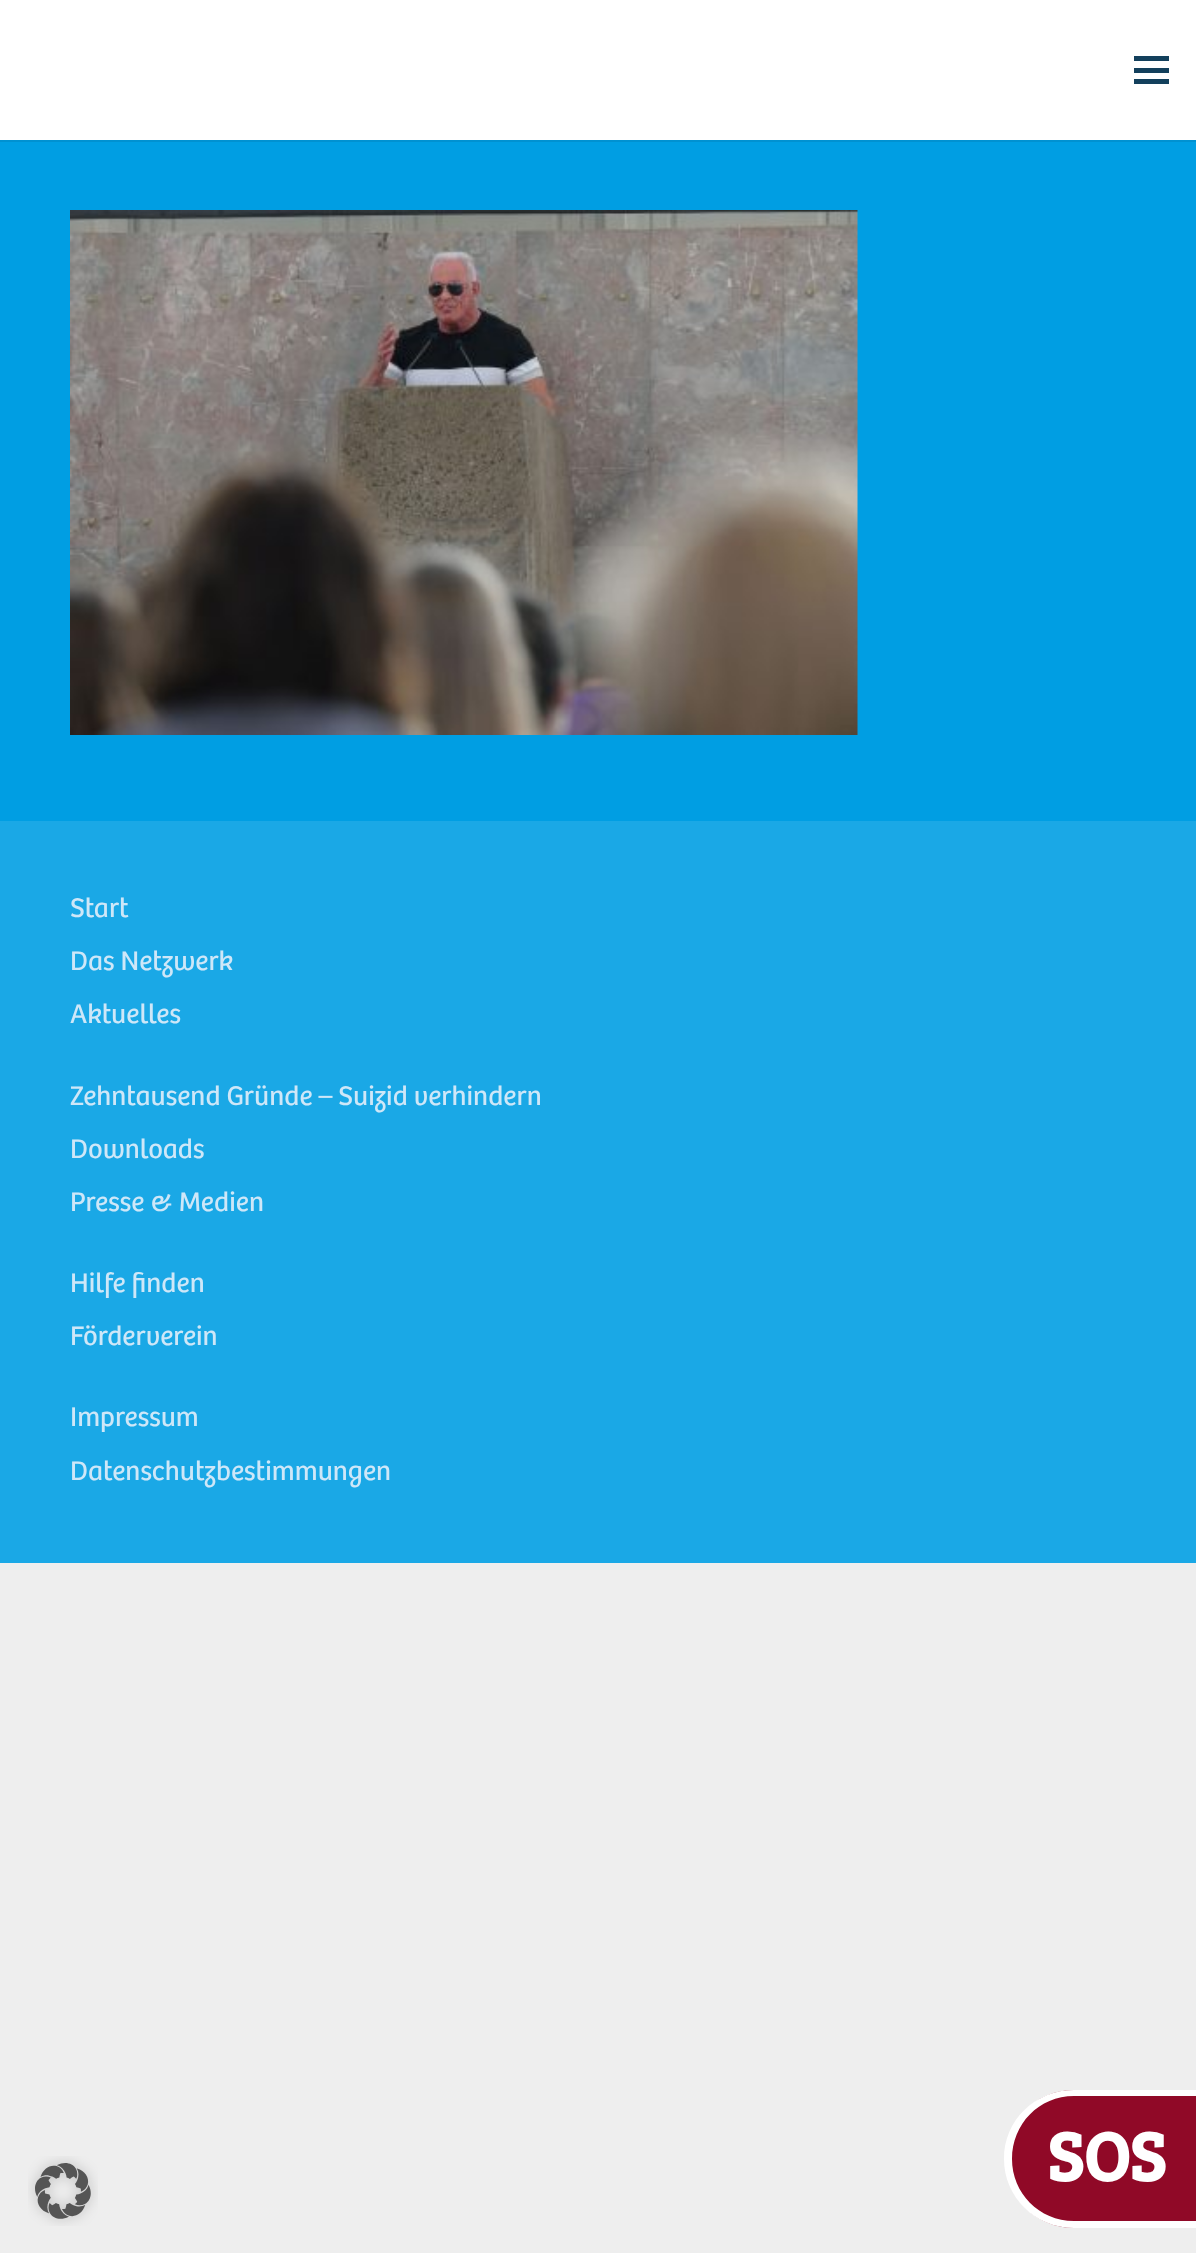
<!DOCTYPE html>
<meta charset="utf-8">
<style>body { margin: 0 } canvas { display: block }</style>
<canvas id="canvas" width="1196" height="2253"></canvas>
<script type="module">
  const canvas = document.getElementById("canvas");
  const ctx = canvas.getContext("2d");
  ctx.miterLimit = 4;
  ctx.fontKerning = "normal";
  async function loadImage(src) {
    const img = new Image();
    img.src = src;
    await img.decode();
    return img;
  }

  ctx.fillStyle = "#eeeeee";
  ctx.fillRect(0, 0, 1196, 2253);
  ctx.fillStyle = "#1aa8e6";
  ctx.fillRect(0, 821, 1196, 742);
  ctx.font = "28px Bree";
  ctx.fillStyle = "#cee7f8";
  ctx.fillText("Start", 70, 917);
  ctx.fillText("Das Netzwerk", 70, 970);
  ctx.fillText("Aktuelles", 70, 1023);
  ctx.fillText("Zehntausend Gründe – Suizid verhindern", 70, 1105);
  ctx.fillText("Downloads", 70, 1158);
  ctx.fillText("Presse & Medien", 70, 1211);
  ctx.fillText("Hilfe finden", 70, 1292);
  ctx.fillText("Förderverein", 70, 1345);
  ctx.fillText("Impressum", 70, 1426);
  ctx.fillText("Datenschutzbestimmungen", 70, 1480);
  ctx.drawImage(await loadImage("img1.png"), 28, 2156, 70, 70);
  ctx.fillStyle = "#009ee3";
  ctx.fillRect(0, 142, 1196, 679);
  ctx.fillStyle = "#0091d1";
  ctx.fillRect(0, 140, 1196, 2);
  ctx.fillStyle = "#ffffff";
  ctx.fillRect(0, 0, 1196, 140);
  ctx.fillStyle = "#13405c";
  ctx.fillRect(1134, 68, 35, 5);
  ctx.fillRect(1134, 56, 35, 5);
  ctx.fillRect(1134, 79, 35, 5);
  ctx.drawImage(await loadImage("img2.png"), 70, 210, 788, 525);
  ctx.fillStyle = "#900927";
  ctx.beginPath();
  ctx.moveTo(1074, 2090);
  ctx.lineTo(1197, 2090);
  ctx.lineTo(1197, 2228);
  ctx.lineTo(1074, 2228);
  ctx.bezierCurveTo(1036, 2228, 1005, 2197, 1005, 2159);
  ctx.bezierCurveTo(1005, 2121, 1036, 2090, 1074, 2090);
  ctx.closePath();
  ctx.fill();
  ctx.fillStyle = "#ffffff";
  ctx.beginPath();
  ctx.moveTo(1074, 2090);
  ctx.lineTo(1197, 2090);
  ctx.lineTo(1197, 2228);
  ctx.lineTo(1074, 2228);
  ctx.bezierCurveTo(1035, 2228, 1004, 2197, 1004, 2159);
  ctx.bezierCurveTo(1004, 2120, 1035, 2090, 1074, 2090);
  ctx.closePath();
  ctx.moveTo(1074, 2096);
  ctx.lineTo(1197, 2096);
  ctx.lineTo(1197, 2221);
  ctx.lineTo(1074, 2221);
  ctx.bezierCurveTo(1039, 2221, 1012, 2193, 1012, 2159);
  ctx.bezierCurveTo(1012, 2124, 1039, 2096, 1074, 2096);
  ctx.closePath();
  ctx.fill("evenodd");
  ctx.font = "bold 70px Bree Serif";
  ctx.fillText("SOS", 1047, 2181);
</script>
